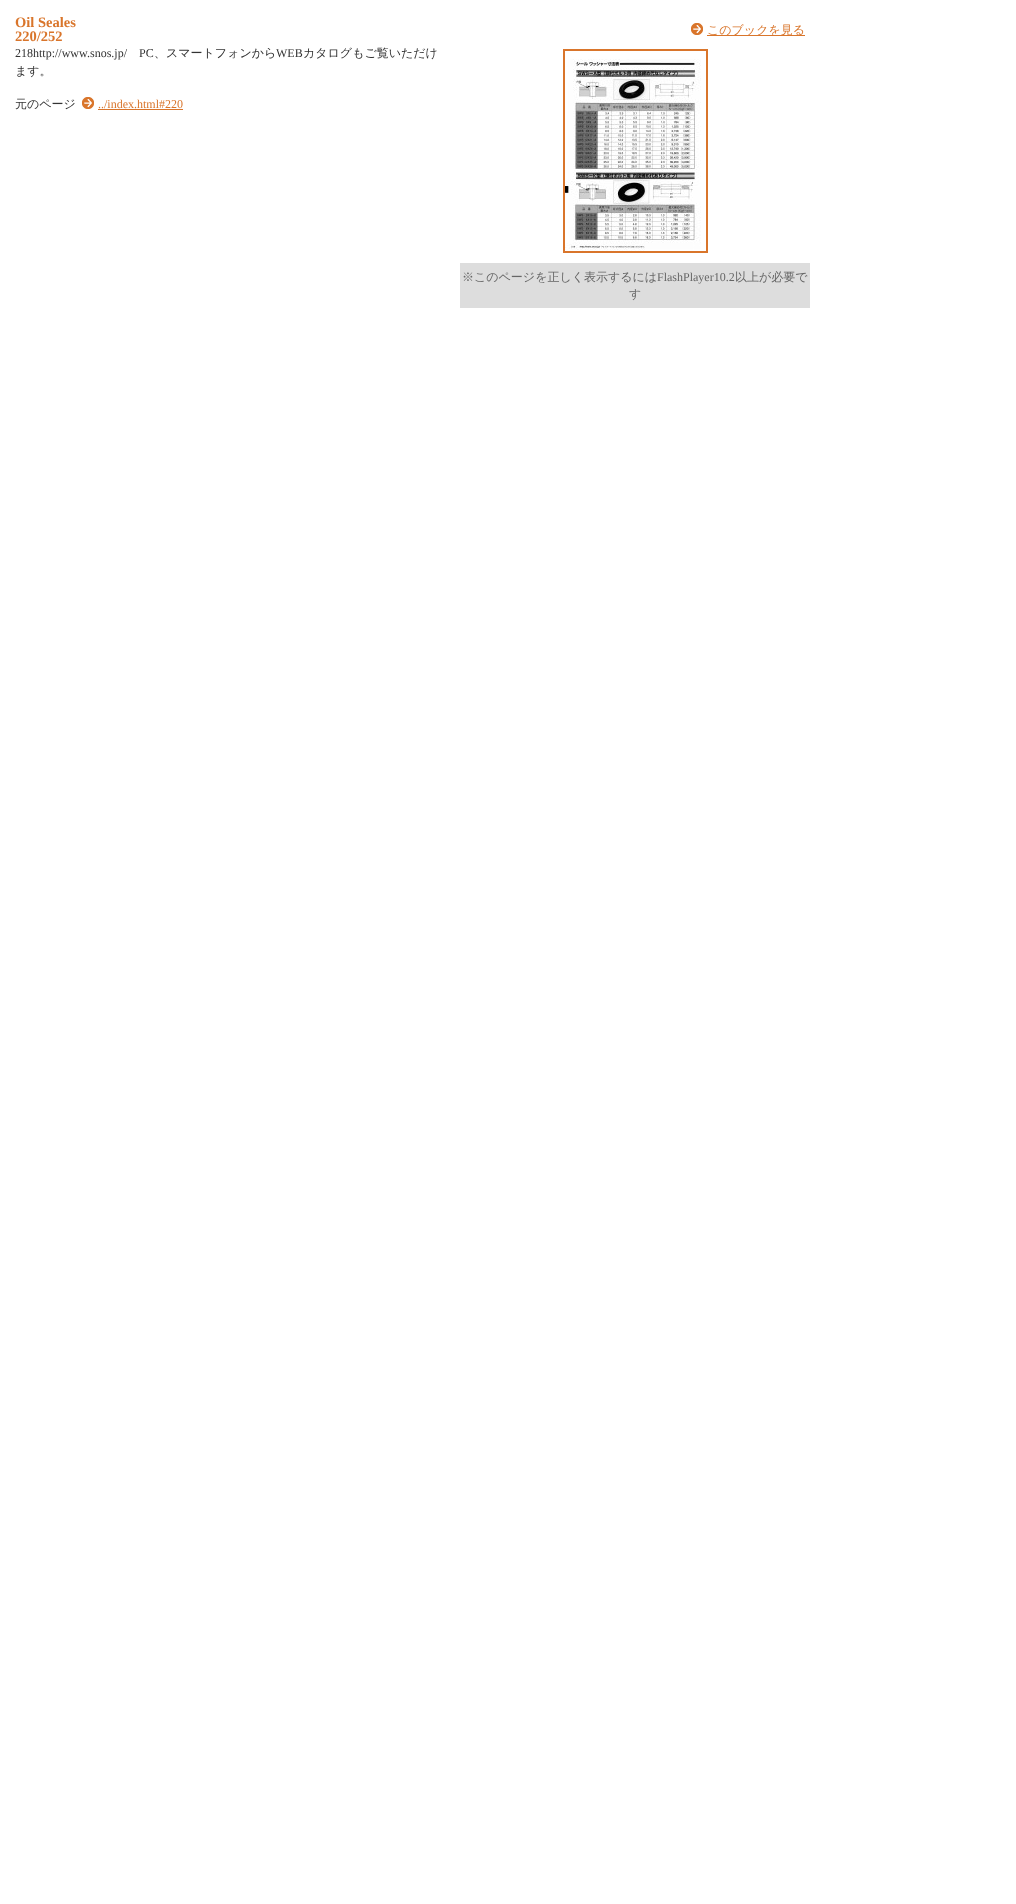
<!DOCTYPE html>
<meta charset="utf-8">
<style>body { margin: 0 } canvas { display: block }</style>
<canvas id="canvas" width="1016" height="1904"></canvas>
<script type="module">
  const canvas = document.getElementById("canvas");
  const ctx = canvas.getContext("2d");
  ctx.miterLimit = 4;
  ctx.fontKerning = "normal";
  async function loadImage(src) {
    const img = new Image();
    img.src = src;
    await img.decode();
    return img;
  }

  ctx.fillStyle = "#ffffff";
  ctx.fillRect(0, 0, 1016, 1904);
  ctx.font = "bold 14.5px Liberation Serif";
  ctx.fillStyle = "#d9752b";
  ctx.fillText("Oil Seales", 15, 27);
  ctx.fillText("220/252", 15, 41);
  ctx.font = "12px Liberation Serif";
  ctx.fillStyle = "#333333";
  ctx.fillText("218http://www", 15, 57);
  ctx.fillText(".snos.jp/", 87, 57);
  ctx.fillText("PC", 139, 57);
  ctx.font = "500 12px WenQuanYi Zen Hei";
  ctx.fillText("、スマートフォンから", 154, 57);
  ctx.font = "12px Liberation Serif";
  ctx.fillText("WEB", 276, 57);
  ctx.font = "500 12px WenQuanYi Zen Hei";
  ctx.fillText("カタログもご覧いただけ", 303, 57);
  ctx.fillText("ます。", 15, 75);
  ctx.fillText("元のページ", 15, 108);
  ctx.drawImage(await loadImage("img1.png"), 82, 97, 12, 12);
  ctx.font = "12px Liberation Serif";
  ctx.fillStyle = "#d9752b";
  ctx.fillText("../index.html#220", 98, 108);
  ctx.fillRect(98, 109, 85, 1);
  ctx.drawImage(await loadImage("img1.png"), 691, 23, 12, 12);
  ctx.fillRect(707, 35, 98, 1);
  ctx.font = "500 12px WenQuanYi Zen Hei";
  ctx.fillText("このブックを見る", 707, 34);
  ctx.strokeStyle = "#d9752b";
  ctx.lineWidth = 2;
  ctx.strokeRect(564, 50, 143, 202);
  ctx.drawImage(await loadImage("img2.png"), 565, 59, 136, 192);
  ctx.fillStyle = "#dddddd";
  ctx.fillRect(460, 263, 350, 45);
  ctx.fillStyle = "#666666";
  ctx.fillText("※このページを正しく表示するには", 462, 281);
  ctx.font = "12px Liberation Serif";
  ctx.fillText("FlashPlayer10.2", 657, 281);
  ctx.font = "500 12px WenQuanYi Zen Hei";
  ctx.fillText("以上が必要で", 735, 281);
  ctx.fillText("す", 629, 298);
</script>
